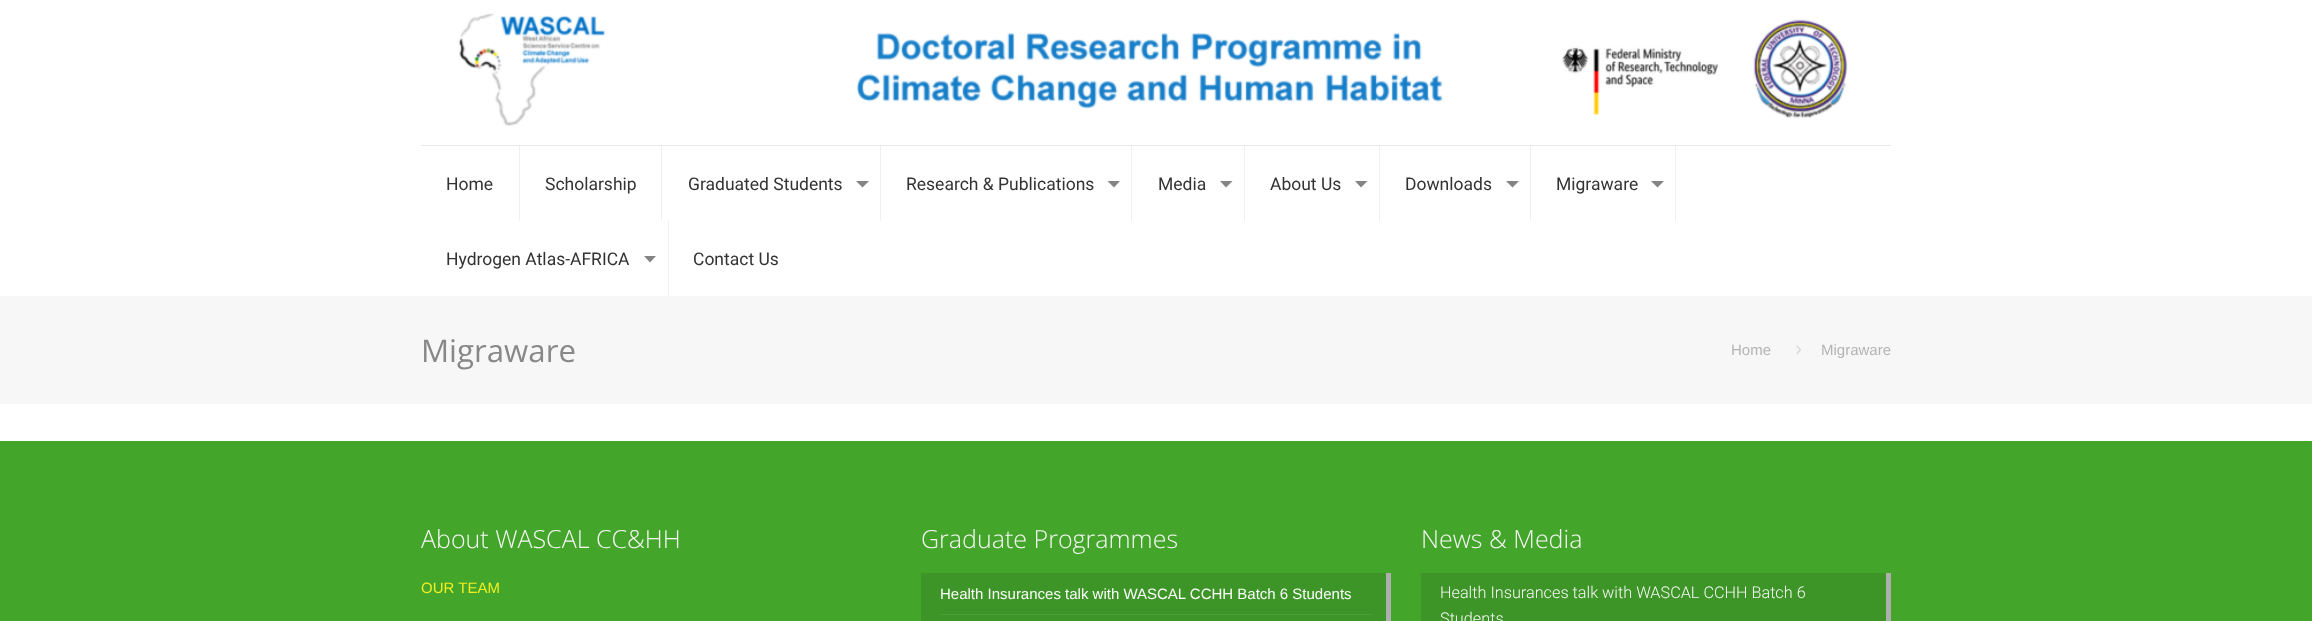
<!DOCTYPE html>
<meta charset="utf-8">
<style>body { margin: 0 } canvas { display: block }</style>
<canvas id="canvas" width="2312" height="621"></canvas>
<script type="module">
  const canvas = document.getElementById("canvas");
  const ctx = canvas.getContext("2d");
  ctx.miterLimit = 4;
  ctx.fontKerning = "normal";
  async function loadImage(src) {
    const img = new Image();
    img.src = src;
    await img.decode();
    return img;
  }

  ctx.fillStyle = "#ffffff";
  ctx.fillRect(0, 0, 2312, 621);
  ctx.fillStyle = "#e9e9e9";
  ctx.fillRect(421, 145, 1470, 1);
  ctx.drawImage(await loadImage("img1.png"), 458, 13, 1390, 113);
  ctx.fillStyle = "#f0f0f0";
  ctx.fillRect(519, 146, 1, 75);
  ctx.font = "17.5px Roboto";
  ctx.fillStyle = "#333333";
  ctx.fillText("Home", 446, 190);
  ctx.fillStyle = "#f0f0f0";
  ctx.fillRect(661, 146, 1, 75);
  ctx.fillStyle = "#333333";
  ctx.fillText("Scholarship", 545, 190);
  ctx.fillStyle = "#f0f0f0";
  ctx.fillRect(880, 146, 1, 75);
  ctx.fillStyle = "#333333";
  ctx.fillText("Graduated Students", 688, 190);
  ctx.fillStyle = "#848484";
  ctx.beginPath();
  ctx.moveTo(856, 181);
  ctx.lineTo(869, 181);
  ctx.lineTo(862.5, 187.5);
  ctx.closePath();
  ctx.fill();
  ctx.fillStyle = "#f0f0f0";
  ctx.fillRect(1131, 146, 1, 75);
  ctx.fillStyle = "#333333";
  ctx.fillText("Research & Publications", 906, 190);
  ctx.fillStyle = "#848484";
  ctx.beginPath();
  ctx.moveTo(1107.5, 181);
  ctx.lineTo(1120, 181);
  ctx.lineTo(1114, 187.5);
  ctx.closePath();
  ctx.fill();
  ctx.fillStyle = "#f0f0f0";
  ctx.fillRect(1244, 146, 1, 75);
  ctx.fillStyle = "#333333";
  ctx.fillText("Media", 1158, 190);
  ctx.fillStyle = "#848484";
  ctx.beginPath();
  ctx.moveTo(1220, 181);
  ctx.lineTo(1232.5, 181);
  ctx.lineTo(1226, 187.5);
  ctx.closePath();
  ctx.fill();
  ctx.fillStyle = "#f0f0f0";
  ctx.fillRect(1379, 146, 1, 75);
  ctx.fillStyle = "#333333";
  ctx.fillText("About Us", 1270, 190);
  ctx.fillStyle = "#848484";
  ctx.beginPath();
  ctx.moveTo(1355, 181);
  ctx.lineTo(1367.5, 181);
  ctx.lineTo(1361, 187.5);
  ctx.closePath();
  ctx.fill();
  ctx.fillStyle = "#f0f0f0";
  ctx.fillRect(1530, 146, 1, 75);
  ctx.fillStyle = "#333333";
  ctx.fillText("Downloads", 1405, 190);
  ctx.fillStyle = "#848484";
  ctx.beginPath();
  ctx.moveTo(1506, 181);
  ctx.lineTo(1519, 181);
  ctx.lineTo(1512.5, 187.5);
  ctx.closePath();
  ctx.fill();
  ctx.fillStyle = "#f0f0f0";
  ctx.fillRect(1675, 146, 1, 75);
  ctx.fillStyle = "#333333";
  ctx.fillText("Migraware", 1556, 190);
  ctx.fillStyle = "#848484";
  ctx.beginPath();
  ctx.moveTo(1651, 181);
  ctx.lineTo(1664, 181);
  ctx.lineTo(1657.5, 187.5);
  ctx.closePath();
  ctx.fill();
  ctx.fillStyle = "#f0f0f0";
  ctx.fillRect(668, 221, 1, 75);
  ctx.fillStyle = "#333333";
  ctx.fillText("Hydrogen Atlas-AFRICA", 446, 265);
  ctx.fillStyle = "#848484";
  ctx.beginPath();
  ctx.moveTo(644, 256);
  ctx.lineTo(656, 256);
  ctx.lineTo(650, 262.5);
  ctx.closePath();
  ctx.fill();
  ctx.fillStyle = "#333333";
  ctx.fillText("Contact Us", 693, 265);
  ctx.fillStyle = "#f7f7f7";
  ctx.fillRect(0, 296, 2312, 108);
  ctx.font = "31.25px Open Sans";
  ctx.fillStyle = "#888888";
  ctx.fillText("Migraware", 421, 362);
  ctx.font = "15px Liberation Sans";
  ctx.fillStyle = "#b4b4b4";
  ctx.fillText("Home", 1731, 355);
  ctx.drawImage(await loadImage("img2.png"), 1796, 345, 6, 9);
  ctx.fillText("Migraware", 1821, 355);
  ctx.fillStyle = "#43a52a";
  ctx.fillRect(0, 441, 2312, 180);
  ctx.font = "300 25px Open Sans";
  ctx.fillStyle = "#f7f6f6";
  ctx.fillText("About WASCAL CC&HH", 421, 548);
  ctx.font = "15px Liberation Sans";
  ctx.fillStyle = "#eeee22";
  ctx.fillText("OUR TEAM", 421, 593);
  ctx.font = "300 25px Open Sans";
  ctx.fillStyle = "#f7f6f6";
  ctx.fillText("Graduate Programmes", 921, 548);
  ctx.fillStyle = "#3c9526";
  ctx.fillRect(921, 573, 465, 48);
  ctx.fillStyle = "#4c9d37";
  ctx.fillRect(940, 614, 433, 1);
  ctx.font = "15px Liberation Sans";
  ctx.fillStyle = "#fcfcfc";
  ctx.fillText("Health Insurances talk with WASCAL CCHH Batch 6 Students", 940, 599);
  ctx.fillStyle = "#aeaeae";
  ctx.fillRect(1386, 573, 5, 48);
  ctx.font = "300 25px Open Sans";
  ctx.fillStyle = "#f7f6f6";
  ctx.fillText("News & Media", 1421, 548);
  ctx.fillStyle = "#3c9526";
  ctx.fillRect(1421, 573, 465, 48);
  ctx.font = "300 16.25px Roboto";
  ctx.fillStyle = "#f7f6f6";
  ctx.fillText("Health Insurances talk with WASCAL CCHH Batch 6", 1440, 598);
  ctx.fillText("Students", 1440, 624);
  ctx.fillStyle = "#aeaeae";
  ctx.fillRect(1886, 573, 5, 48);
</script>
